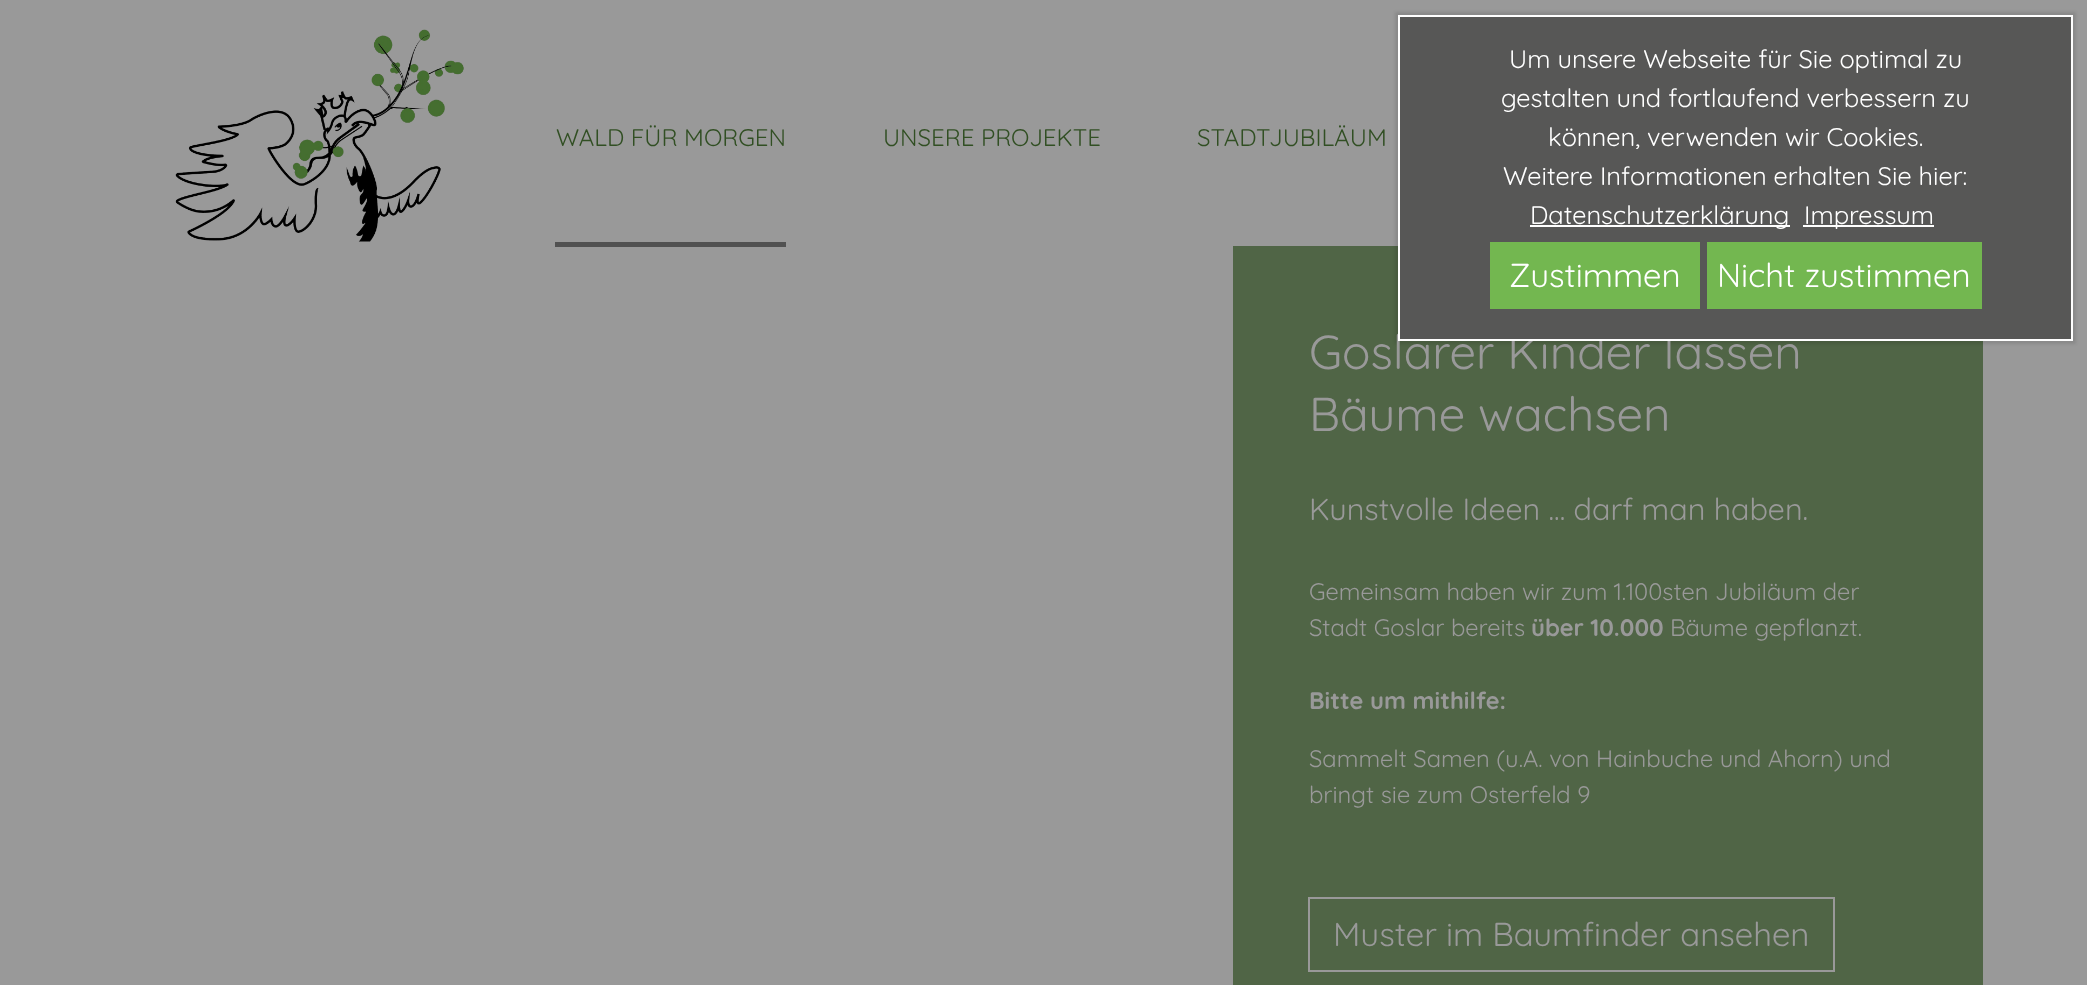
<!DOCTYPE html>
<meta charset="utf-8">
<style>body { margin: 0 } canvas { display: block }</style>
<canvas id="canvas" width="2087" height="985"></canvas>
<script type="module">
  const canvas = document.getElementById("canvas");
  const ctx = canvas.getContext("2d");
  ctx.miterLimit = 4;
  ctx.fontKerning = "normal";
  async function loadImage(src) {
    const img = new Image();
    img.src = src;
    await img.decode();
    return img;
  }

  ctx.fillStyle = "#999999";
  ctx.fillRect(0, 0, 2087, 985);
  ctx.fillStyle = "#506546";
  ctx.fillRect(1233, 246, 750, 739);
  ctx.fillStyle = "rgba(0, 0, 0, 0.1)";
  ctx.filter = "blur(1.5px)";
  ctx.beginPath();
  ctx.rect(1395, 12, 681, 332);
  ctx.fill();
  ctx.filter = "none";
  ctx.font = "300 47.6px Quicksand";
  ctx.fillStyle = "#999999";
  ctx.fillText("Goslarer Kinder lassen", 1309, 369);
  ctx.fillStyle = "#575756";
  ctx.beginPath();
  ctx.rect(1399, 16, 673, 324);
  ctx.fill();
  ctx.strokeStyle = "#ffffff";
  ctx.lineWidth = 2;
  ctx.stroke();
  ctx.font = "300 25.5px Quicksand";
  ctx.fillStyle = "#ffffff";
  ctx.fillText("Um unsere Webseite für Sie optimal zu", 1509, 68);
  ctx.fillText("gestalten und fortlaufend verbessern zu", 1501, 107);
  ctx.fillText("können, verwenden wir Cookies.", 1548, 146);
  ctx.fillText("Weitere Informationen erhalten Sie hier:", 1503, 185);
  ctx.fillRect(1530, 225, 260, 2);
  ctx.fillText("Datenschutzerklärung", 1530, 224);
  ctx.fillRect(1803, 225, 131, 2);
  ctx.fillText("Impressum", 1804, 224);
  ctx.fillStyle = "#73b750";
  ctx.fillRect(1490, 242, 210, 67);
  ctx.font = "300 33.1px Quicksand";
  ctx.fillStyle = "#ffffff";
  ctx.fillText("Zustimmen", 1509, 287);
  ctx.fillStyle = "#73b750";
  ctx.fillRect(1707, 242, 275, 67);
  ctx.fillStyle = "#ffffff";
  ctx.fillText("Nicht zustimmen", 1717, 287);
  ctx.drawImage(await loadImage("img1.png"), 175, 29, 289, 213);
  ctx.font = "300 24px Quicksand";
  ctx.fillStyle = "#314f23";
  ctx.fillText("WALD FÜR MORGEN", 556, 146);
  ctx.fillStyle = "#515151";
  ctx.fillRect(555, 242, 231, 5);
  ctx.fillStyle = "#314f23";
  ctx.fillText("UNSERE PROJEKTE", 883, 146);
  ctx.fillText("STADTJUBILÄUM", 1197, 146);
  ctx.font = "300 47.6px Quicksand";
  ctx.fillStyle = "#999999";
  ctx.fillText("Bäume wachsen", 1309, 431);
  ctx.font = "300 30.6px Quicksand";
  ctx.fillText("Kunstvolle Ideen ... darf man haben.", 1309, 520);
  ctx.font = "300 23.8px Quicksand";
  ctx.fillText("Gemeinsam haben wir zum 1.100sten Jubiläum der", 1309, 600);
  ctx.fillText("Stadt Goslar bereits", 1309, 636);
  ctx.font = "300 23.8px 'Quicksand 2'";
  ctx.fillText("über 10.000", 1531, 636);
  ctx.font = "300 23.8px Quicksand";
  ctx.fillText("Bäume gepflanzt.", 1670, 636);
  ctx.font = "300 23.8px 'Quicksand 2'";
  ctx.fillText("Bitte um mithilfe:", 1309, 709);
  ctx.font = "300 23.8px Quicksand";
  ctx.fillText("Sammelt Samen (u.A. von Hainbuche und Ahorn) und", 1309, 767);
  ctx.fillText("bringt sie zum Osterfeld 9", 1309, 803);
  ctx.strokeStyle = "#999999";
  ctx.strokeRect(1309, 898, 525, 73);
  ctx.font = "300 33.1px Quicksand";
  ctx.fillText("Muster im Baumfinder ansehen", 1333, 946);
</script>
